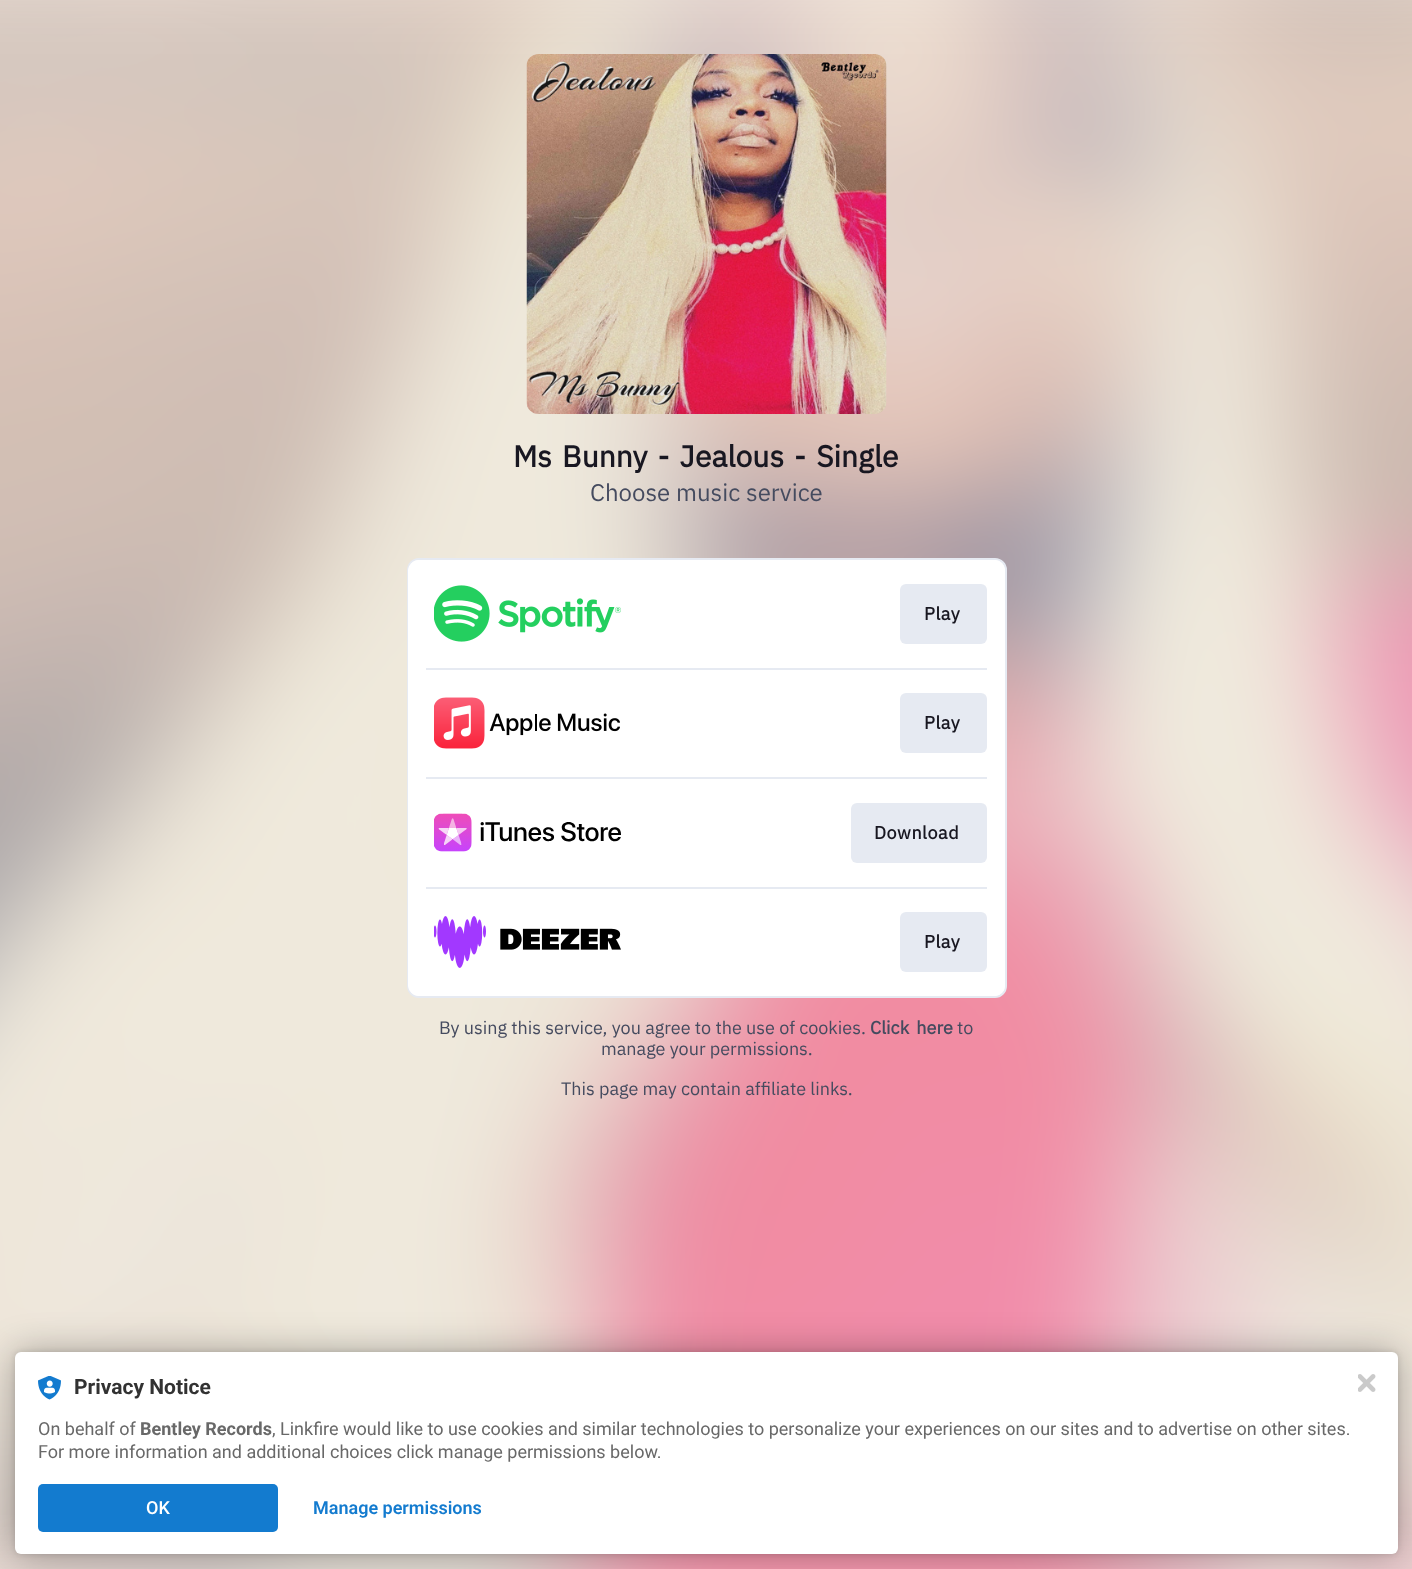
<!DOCTYPE html>
<meta charset="utf-8">
<style>body { margin: 0 } canvas { display: block }</style>
<canvas id="canvas" width="1412" height="1569"></canvas>
<script type="module">
  const canvas = document.getElementById("canvas");
  const ctx = canvas.getContext("2d");
  ctx.miterLimit = 4;
  ctx.fontKerning = "normal";
  async function loadImage(src) {
    const img = new Image();
    img.src = src;
    await img.decode();
    return img;
  }

  ctx.fillStyle = "#ffffff";
  ctx.fillRect(0, 0, 1412, 1569);
  ctx.drawImage(await loadImage("img1.png"), 0, 0, 1412, 1569);
  ctx.drawImage(await loadImage("img2.png"), 526, 54, 361, 360);
  ctx.wordSpacing = "3px";
  ctx.font = "bold 30px IBM Plex Sans";
  ctx.fillStyle = "#181721";
  ctx.fillText("Ms Bunny - Jealous - Single", 513, 467);
  ctx.wordSpacing = "0px";
  ctx.font = "24px IBM Plex Sans";
  ctx.fillStyle = "#454b5f";
  ctx.fillText("Choose music service", 590, 501);
  ctx.fillStyle = "#ffffff";
  ctx.beginPath();
  ctx.roundRect(408, 559, 598, 438, 11);
  ctx.fill();
  ctx.strokeStyle = "#e6eaf2";
  ctx.lineWidth = 2;
  ctx.stroke();
  ctx.beginPath();
  ctx.roundRect(408, 560, 597, 436, 11);
  ctx.fill();
  ctx.drawImage(await loadImage("img3.png"), 434, 585, 187, 57);
  ctx.fillStyle = "#e6eaf2";
  ctx.beginPath();
  ctx.roundRect(900, 584, 87, 60, 6);
  ctx.fill();
  ctx.letterSpacing = "0.5px";
  ctx.font = "bold 18px IBM Plex Sans";
  ctx.fillStyle = "#181721";
  ctx.fillText("Play", 924, 620);
  ctx.fillStyle = "#e6eaf2";
  ctx.fillRect(426, 668, 561, 2);
  ctx.drawImage(await loadImage("img4.png"), 434, 697, 186, 52);
  ctx.beginPath();
  ctx.roundRect(900, 693, 87, 60, 6);
  ctx.fill();
  ctx.fillStyle = "#181721";
  ctx.fillText("Play", 924, 729);
  ctx.fillStyle = "#e6eaf2";
  ctx.fillRect(426, 777, 561, 2);
  ctx.drawImage(await loadImage("img5.png"), 434, 813, 187, 39);
  ctx.beginPath();
  ctx.roundRect(851, 803, 136, 60, 6);
  ctx.fill();
  ctx.fillStyle = "#181721";
  ctx.fillText("Download", 874, 839);
  ctx.fillStyle = "#e6eaf2";
  ctx.fillRect(426, 887, 561, 2);
  ctx.drawImage(await loadImage("img6.png"), 434, 916, 187, 52);
  ctx.beginPath();
  ctx.roundRect(900, 912, 87, 60, 6);
  ctx.fill();
  ctx.fillStyle = "#181721";
  ctx.fillText("Play", 924, 948);
  ctx.letterSpacing = "0px";
  ctx.font = "18px IBM Plex Sans";
  ctx.fillStyle = "#454b5f";
  ctx.fillText("By using this service, you agree to the use of cookies.", 439, 1034);
  ctx.wordSpacing = "3px";
  ctx.font = "bold 18px IBM Plex Sans";
  ctx.fillText("Click here", 870, 1034);
  ctx.wordSpacing = "0px";
  ctx.font = "18px IBM Plex Sans";
  ctx.fillText("to", 957, 1034);
  ctx.fillText("manage your permissions.", 601, 1055);
  ctx.fillText("This page may contain affiliate links.", 561, 1095);
  ctx.fillStyle = "rgba(0, 0, 0, 0.12)";
  ctx.filter = "blur(3px)";
  ctx.beginPath();
  ctx.roundRect(15, 1352, 1383, 202, 6);
  ctx.fill();
  ctx.filter = "none";
  ctx.fillStyle = "rgba(0, 0, 0, 0.3)";
  ctx.filter = "blur(18px)";
  ctx.beginPath();
  ctx.roundRect(15, 1352, 1383, 202, 6);
  ctx.fill();
  ctx.filter = "none";
  ctx.fillStyle = "#ffffff";
  ctx.beginPath();
  ctx.roundRect(15, 1352, 1383, 202, 6);
  ctx.fill();
  ctx.drawImage(await loadImage("img7.png"), 38, 1376, 23, 24);
  ctx.font = "bold 21px Roboto";
  ctx.fillStyle = "#323232";
  ctx.fillText("Privacy Notice", 74, 1394);
  ctx.font = "18px Roboto";
  ctx.fillStyle = "#686868";
  ctx.fillText("On behalf of", 38, 1435);
  ctx.font = "bold 18px Roboto";
  ctx.fillText("Bentley Records", 140, 1435);
  ctx.font = "18px Roboto";
  ctx.fillText(", Linkfire would like to use cookies and similar technologies to personalize your experiences on our sites and to advertise on other sites.", 272, 1435);
  ctx.fillText("For more information and additional choices click manage permissions below.", 38, 1458);
  ctx.fillStyle = "#137bcf";
  ctx.beginPath();
  ctx.roundRect(38, 1484, 240, 48, 5);
  ctx.fill();
  ctx.font = "500 18px Roboto";
  ctx.fillStyle = "#ffffff";
  ctx.fillText("OK", 146, 1514);
  ctx.font = "600 18px Roboto";
  ctx.fillStyle = "#137bcf";
  ctx.fillText("Manage permissions", 313, 1514);
  ctx.drawImage(await loadImage("img8.png"), 1358, 1374, 18, 18);
</script>
